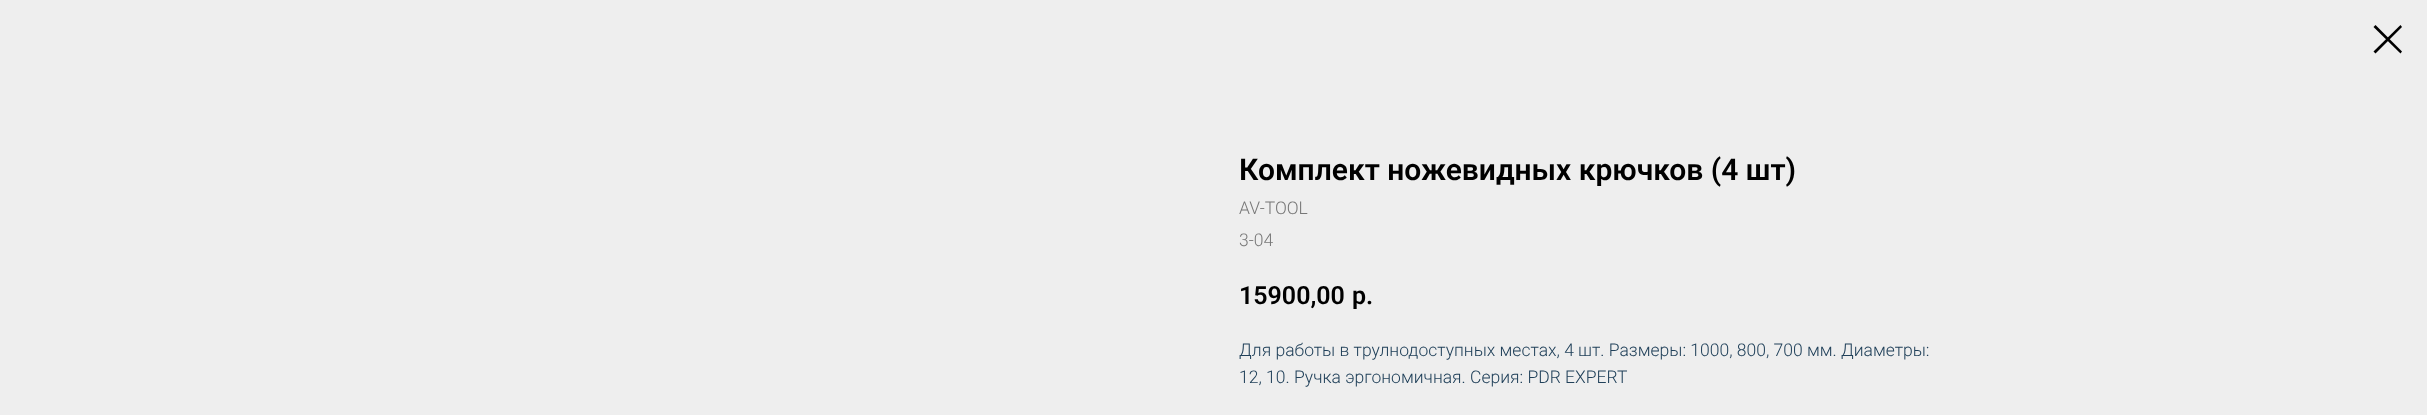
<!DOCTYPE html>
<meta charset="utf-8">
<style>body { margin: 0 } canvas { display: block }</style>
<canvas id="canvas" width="2427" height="415"></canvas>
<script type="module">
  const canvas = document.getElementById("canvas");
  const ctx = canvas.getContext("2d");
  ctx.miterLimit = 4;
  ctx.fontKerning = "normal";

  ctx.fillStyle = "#eeeeee";
  ctx.fillRect(0, 0, 2427, 415);
  ctx.fillStyle = "#000000";
  ctx.beginPath();
  ctx.moveTo(2373.5, 27);
  ctx.lineTo(2375.5, 25);
  ctx.lineTo(2402, 51.5);
  ctx.lineTo(2400.5, 53.5);
  ctx.closePath();
  ctx.fill("evenodd");
  ctx.beginPath();
  ctx.moveTo(2400.5, 25);
  ctx.lineTo(2402, 27);
  ctx.lineTo(2375.5, 53.5);
  ctx.lineTo(2373.5, 51.5);
  ctx.closePath();
  ctx.fill("evenodd");
  ctx.font = "600 30px Roboto";
  ctx.fillText("Комплект ножевидных крючков (4 шт)", 1239, 180);
  ctx.font = "300 17.5px Roboto";
  ctx.fillStyle = "#777777";
  ctx.fillText("AV-TOOL", 1239, 214);
  ctx.fillText("3-04", 1239, 246);
  ctx.font = "600 25px Roboto";
  ctx.fillStyle = "#000000";
  ctx.fillText("15900,00", 1239, 304);
  ctx.fillText("р.", 1352, 304);
  ctx.font = "300 17.5px Roboto";
  ctx.fillStyle = "#21415a";
  ctx.fillText("Для работы в трулнодоступных местах, 4 шт. Размеры: 1000, 800, 700 мм. Диаметры:", 1239, 356);
  ctx.fillText("12, 10. Ручка эргономичная. Серия: РDR EXPERT", 1239, 383);
</script>
